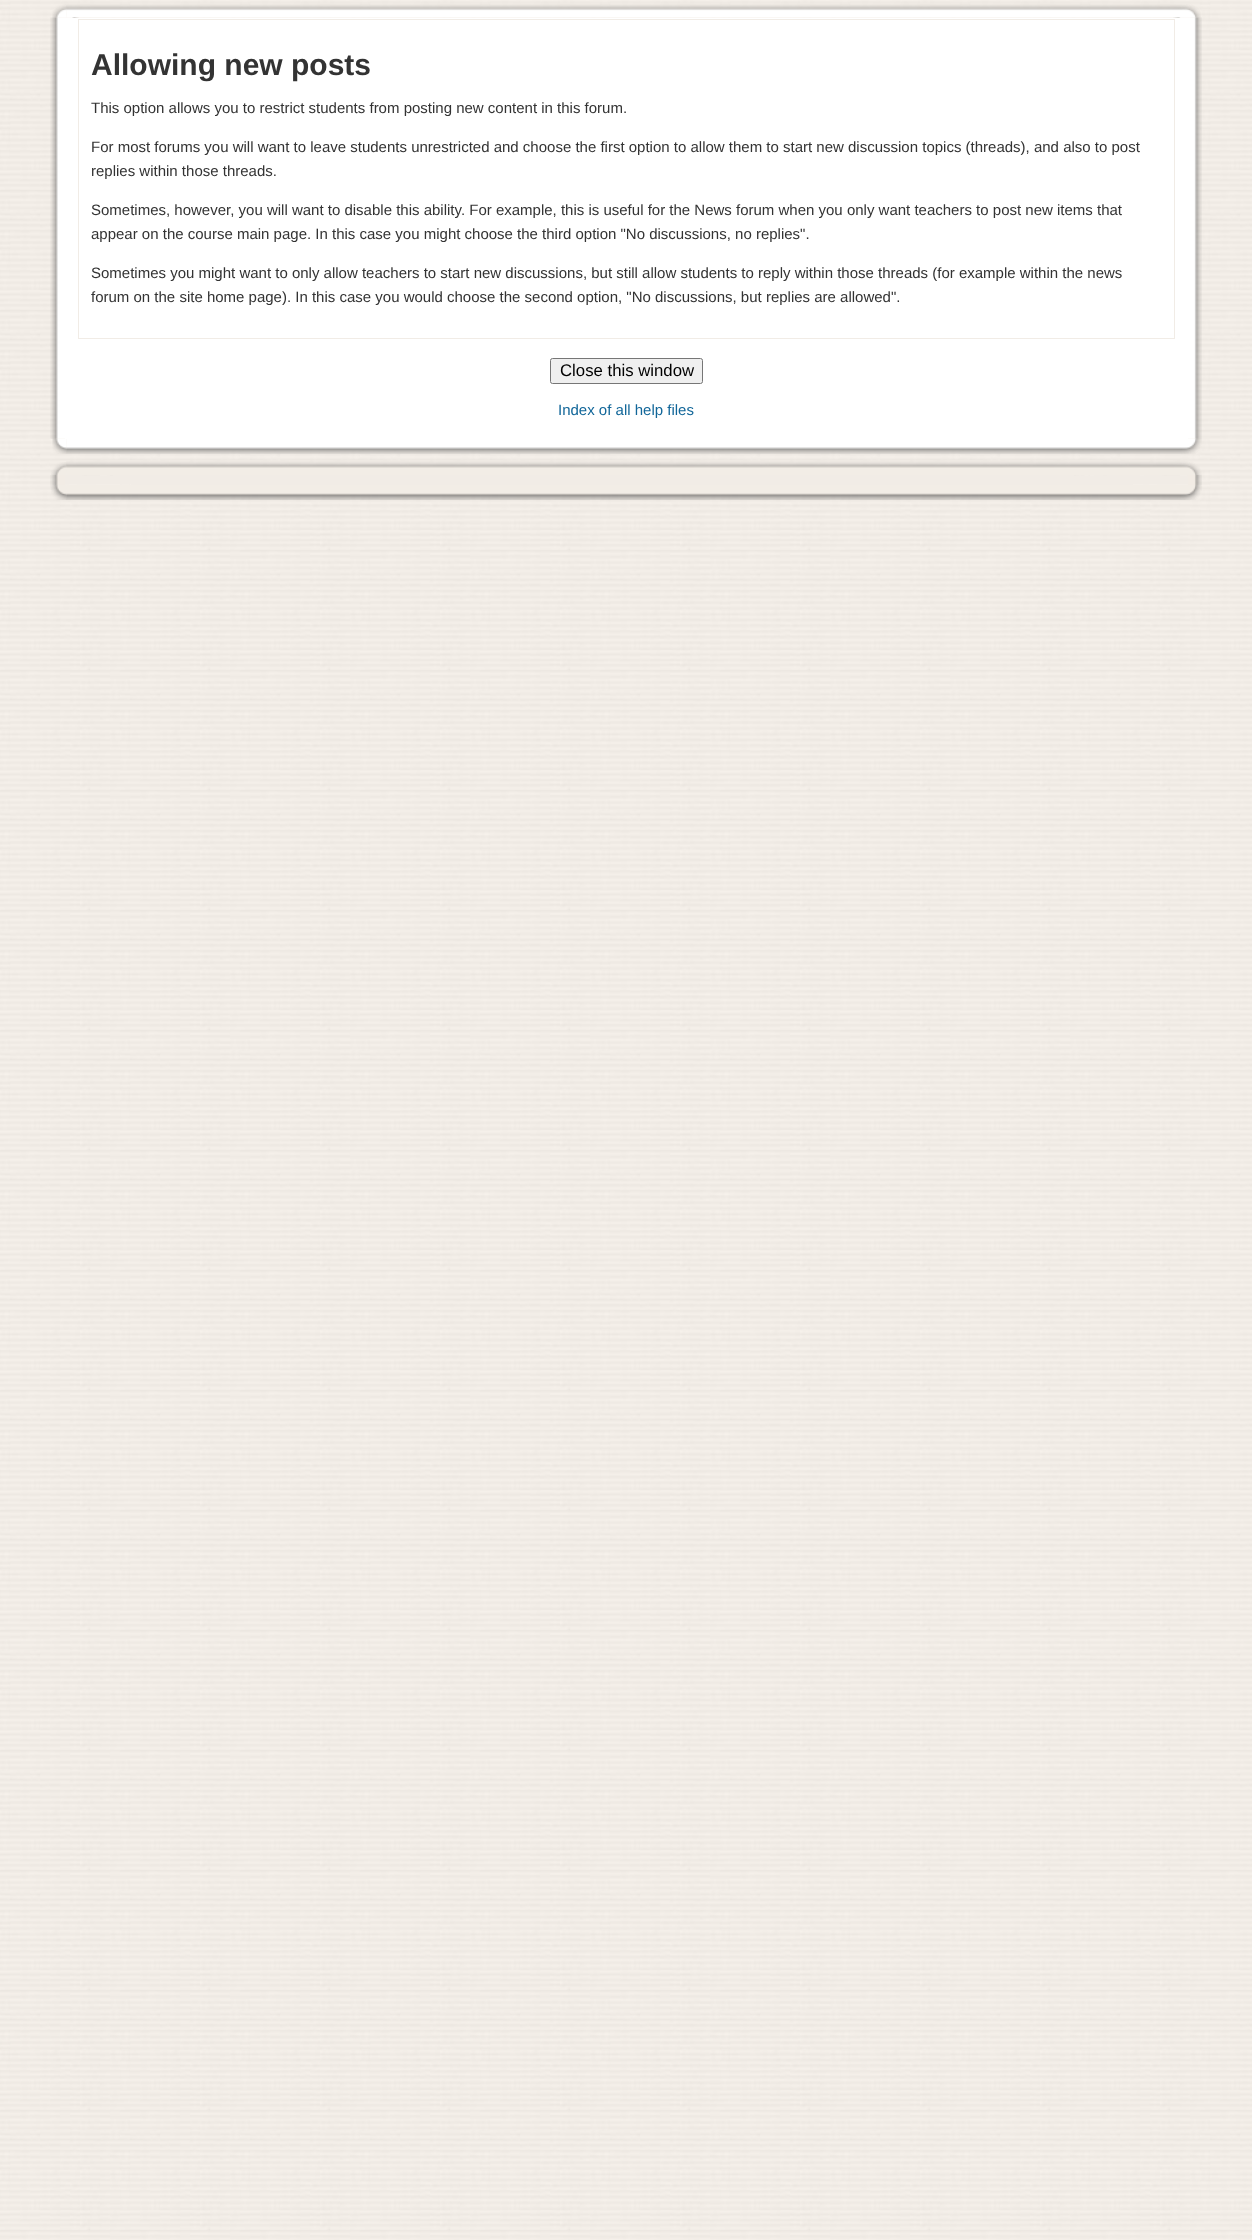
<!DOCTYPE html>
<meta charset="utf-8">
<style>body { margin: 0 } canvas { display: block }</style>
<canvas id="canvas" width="1252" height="2240"></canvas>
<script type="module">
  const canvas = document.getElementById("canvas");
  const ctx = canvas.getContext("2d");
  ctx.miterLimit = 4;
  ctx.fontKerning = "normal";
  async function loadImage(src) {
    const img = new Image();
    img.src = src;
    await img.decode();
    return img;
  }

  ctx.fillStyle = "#ffffff";
  ctx.fillRect(0, 0, 1252, 2240);
  ctx.drawImage(await loadImage("img1.png"), 0, 0, 1252, 2240);
  ctx.drawImage(await loadImage("img2.png"), 66, 4, 1135, 14);
  ctx.drawImage(await loadImage("img4.png"), 50, 17, 29, 422);
  ctx.drawImage(await loadImage("img3.png"), 52, 4, 15, 14);
  ctx.drawImage(await loadImage("img5.png"), 1173, 17, 29, 422);
  ctx.fillRect(72, 19, 1109, 419);
  ctx.fillRect(65, 18, 1123, 1);
  ctx.fillRect(65, 438, 1123, 1);
  ctx.strokeStyle = "#f1ece6";
  ctx.strokeRect(78.5, 19.5, 1096, 319);
  ctx.font = "bold 30px Liberation Sans";
  ctx.fillStyle = "#333333";
  ctx.fillText("Allowing new posts", 91, 75);
  ctx.font = "15px Liberation Sans";
  ctx.fillText("This option allows you to restrict students from posting new content in this forum.", 91, 113);
  ctx.fillText("For most forums you will want to leave students unrestricted and choose the first option to allow them to start new discussion topics (threads), and also to post", 91, 152);
  ctx.fillText("replies within those threads.", 91, 176);
  ctx.fillText("Sometimes, however, you will want to disable this ability. For example, this is useful for the News forum when you only want teachers to post new items that", 91, 215);
  ctx.fillText("appear on the course main page. In this case you might choose the third option \"No discussions, no replies\".", 91, 239);
  ctx.fillText("Sometimes you might want to only allow teachers to start new discussions, but still allow students to reply within those threads (for example within the news", 91, 278);
  ctx.fillText("forum on the site home page). In this case you would choose the second option, \"No discussions, but replies are allowed\".", 91, 302);
  ctx.fillStyle = "#efefef";
  ctx.beginPath();
  ctx.roundRect(550.5, 358.5, 152, 25, 2);
  ctx.fill();
  ctx.strokeStyle = "#767676";
  ctx.stroke();
  ctx.font = "16.75px Liberation Sans";
  ctx.fillStyle = "#000000";
  ctx.fillText("Close this window", 560, 376);
  ctx.font = "15px Liberation Sans";
  ctx.fillStyle = "#116699";
  ctx.fillText("Index of all help files", 558, 415);
  ctx.drawImage(await loadImage("img6.png"), 66, 438, 1136, 16);
  ctx.drawImage(await loadImage("img7.png"), 52, 438, 15, 16);
  ctx.drawImage(await loadImage("img8.png"), 66, 461, 1136, 14);
  ctx.drawImage(await loadImage("img9.png"), 51, 462, 16, 13);
  ctx.drawImage(await loadImage("img10.png"), 50, 475, 15, 10);
  ctx.drawImage(await loadImage("img11.png"), 1188, 475, 14, 10);
  ctx.fillStyle = "#f1ece6";
  ctx.fillRect(65, 476, 1123, 8);
  ctx.fillRect(113, 475, 961, 1);
  ctx.fillRect(131, 484, 1002, 1);
  ctx.drawImage(await loadImage("img12.png"), 66, 485, 1136, 15);
  ctx.drawImage(await loadImage("img13.png"), 50, 485, 17, 15);
</script>
